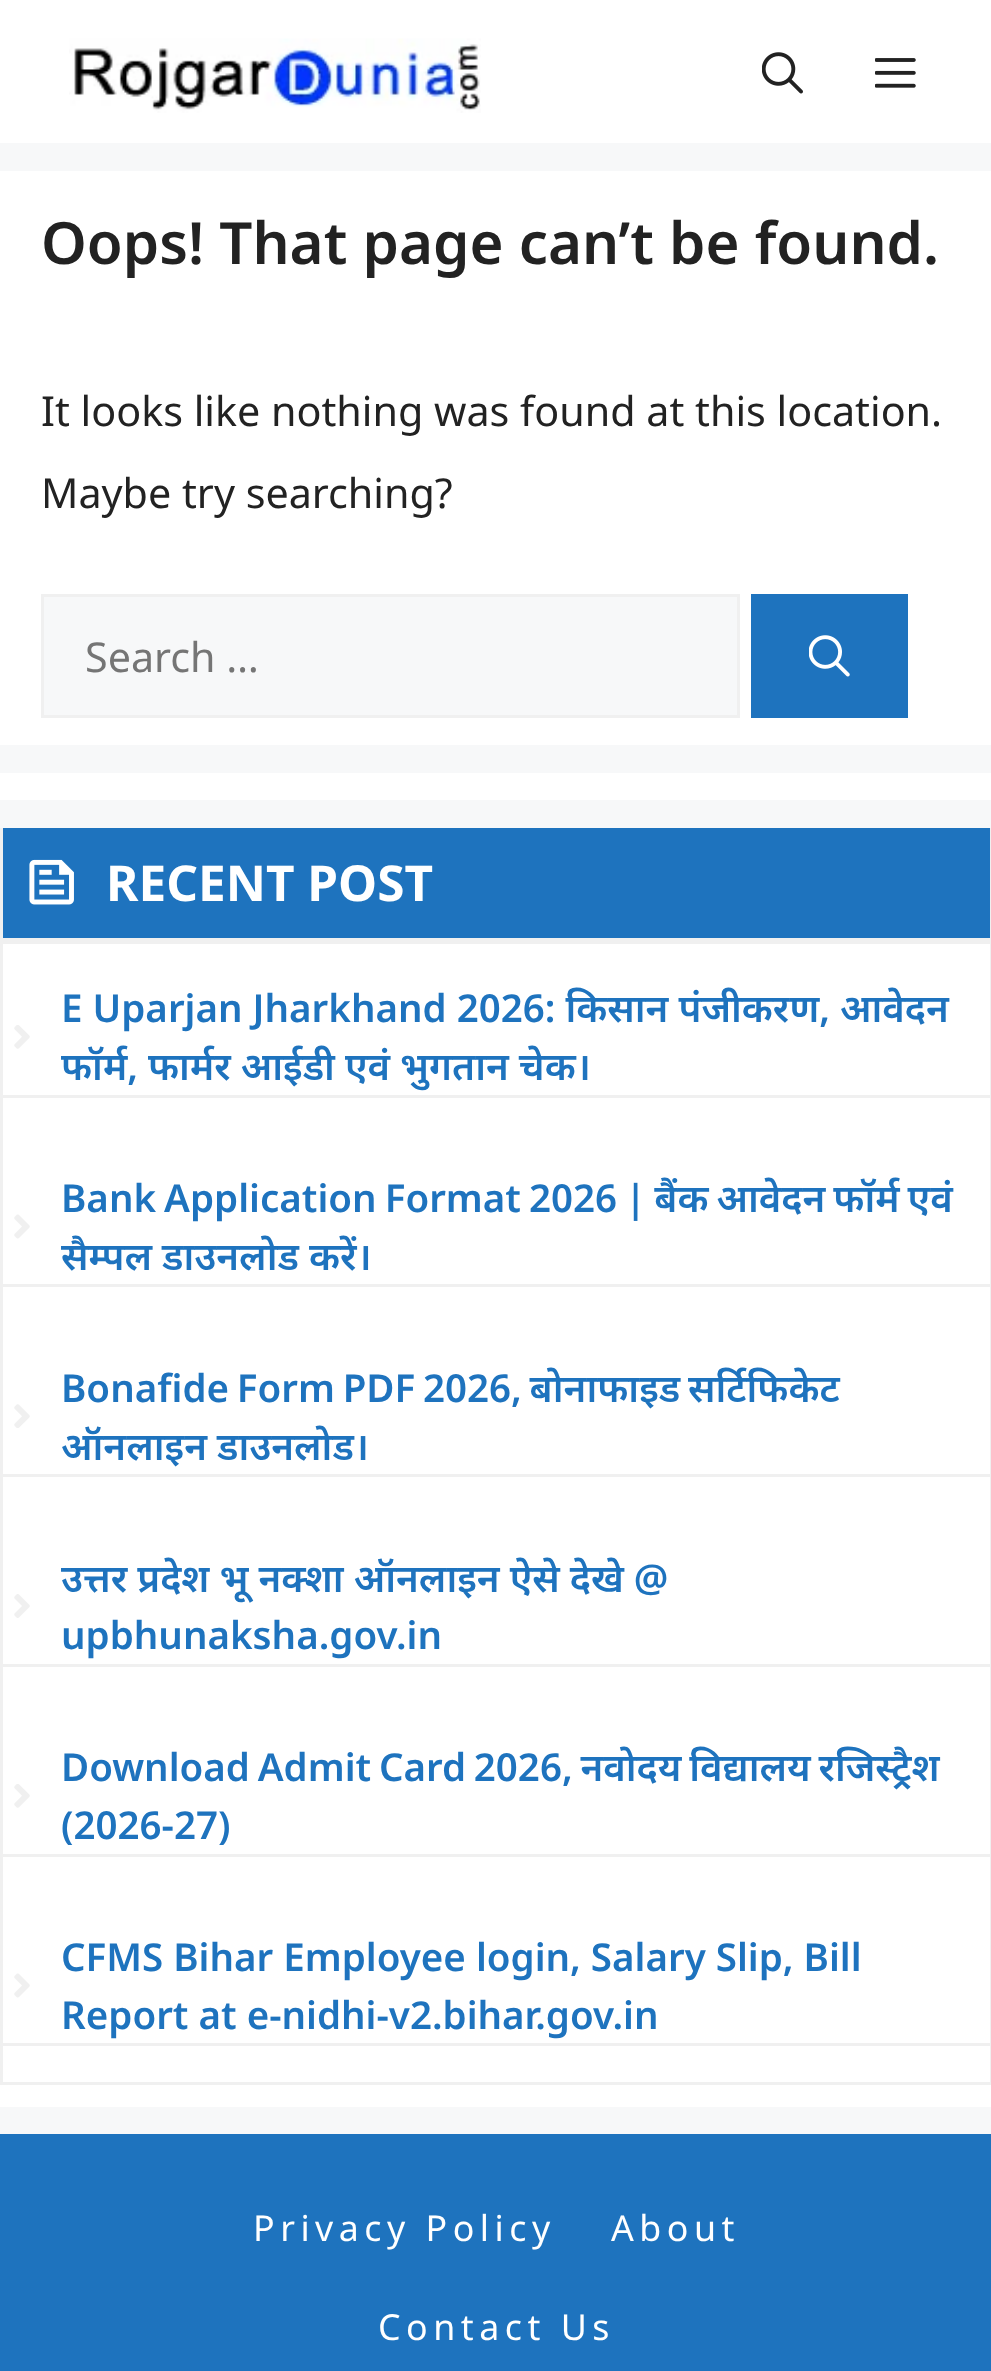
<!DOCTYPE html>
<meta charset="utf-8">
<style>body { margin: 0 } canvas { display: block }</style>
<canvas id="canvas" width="991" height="2371"></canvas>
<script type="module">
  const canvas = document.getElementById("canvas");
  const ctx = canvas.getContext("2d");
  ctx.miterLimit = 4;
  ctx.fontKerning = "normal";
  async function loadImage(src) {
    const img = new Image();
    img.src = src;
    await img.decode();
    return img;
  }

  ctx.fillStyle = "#f7f8f9";
  ctx.fillRect(0, 0, 991, 2371);
  ctx.fillStyle = "#ffffff";
  ctx.fillRect(0, 0, 991, 143);
  ctx.drawImage(await loadImage("img1.png"), 69, 38, 412, 75);
  ctx.drawImage(await loadImage("img2.png"), 762, 52, 41, 42);
  ctx.drawImage(await loadImage("img3.png"), 875, 58, 41, 30);
  ctx.fillRect(0, 171, 991, 574);
  ctx.font = "600 58.25px Noto Sans";
  ctx.fillStyle = "#222222";
  ctx.fillText("Oops! That page can’t be found.", 41, 264);
  ctx.font = "41.25px Noto Sans";
  ctx.fillText("It looks like nothing was found at this location.", 41, 426);
  ctx.fillText("Maybe try searching?", 41, 508);
  ctx.fillStyle = "#f7f8f9";
  ctx.beginPath();
  ctx.rect(42.5, 595.5, 696, 121);
  ctx.fill();
  ctx.strokeStyle = "#f0f0f0";
  ctx.lineWidth = 3;
  ctx.stroke();
  ctx.fillStyle = "#757575";
  ctx.fillText("Search …", 85, 672);
  ctx.fillStyle = "#1e73be";
  ctx.fillRect(751, 594, 157, 124);
  ctx.drawImage(await loadImage("img4.png"), 809, 635, 41, 42);
  ctx.fillStyle = "#ffffff";
  ctx.fillRect(0, 773, 991, 27);
  ctx.fillRect(0, 944, 991, 1163);
  ctx.fillStyle = "#f0f0f0";
  ctx.fillRect(990, 828, 1, 113);
  ctx.fillRect(0, 938, 991, 3);
  ctx.fillRect(0, 828, 3, 113);
  ctx.fillStyle = "#1e73be";
  ctx.fillRect(3, 828, 987, 110);
  ctx.drawImage(await loadImage("img5.png"), 29, 859, 45, 46);
  ctx.font = "bold 49.5px Noto Sans";
  ctx.fillStyle = "#ffffff";
  ctx.fillText("RECENT POST", 106, 901);
  ctx.strokeRect(1.5, 942.5, 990, 1141);
  ctx.fillStyle = "#f0f0f0";
  ctx.fillRect(3, 1095, 987, 3);
  ctx.drawImage(await loadImage("img6.png"), 14, 1025, 16, 24);
  ctx.font = "600 38.5px Noto Sans";
  ctx.fillStyle = "#1e73be";
  ctx.fillText("E Uparjan Jharkhand 2026: किसान पंजीकरण, आवेदन", 61, 1022);
  ctx.fillText("फॉर्म, फार्मर आईडी एवं भुगतान चेक।", 61, 1080);
  ctx.fillStyle = "#f0f0f0";
  ctx.fillRect(3, 1284, 987, 3);
  ctx.drawImage(await loadImage("img7.png"), 14, 1214, 16, 25);
  ctx.wordSpacing = "-2px";
  ctx.fillStyle = "#1e73be";
  ctx.fillText("Bank Application Format 2026 | बैंक आवेदन फॉर्म एवं", 61, 1212);
  ctx.wordSpacing = "0px";
  ctx.fillText("सैम्पल डाउनलोड करें।", 61, 1270);
  ctx.fillStyle = "#f0f0f0";
  ctx.fillRect(3, 1474, 987, 3);
  ctx.drawImage(await loadImage("img8.png"), 14, 1404, 16, 24);
  ctx.wordSpacing = "-2.25px";
  ctx.fillStyle = "#1e73be";
  ctx.fillText("Bonafide Form PDF 2026, बोनाफाइड सर्टिफिकेट", 61, 1402);
  ctx.wordSpacing = "0px";
  ctx.fillText("ऑनलाइन डाउनलोड।", 61, 1460);
  ctx.fillStyle = "#f0f0f0";
  ctx.fillRect(3, 1664, 987, 3);
  ctx.drawImage(await loadImage("img9.png"), 14, 1594, 16, 24);
  ctx.fillStyle = "#1e73be";
  ctx.fillText("उत्तर प्रदेश भू नक्शा ऑनलाइन ऐसे देखे @", 61, 1592);
  ctx.fillText("upbhunaksha.gov.in", 61, 1649);
  ctx.fillStyle = "#f0f0f0";
  ctx.fillRect(3, 1854, 987, 3);
  ctx.drawImage(await loadImage("img6.png"), 14, 1784, 16, 24);
  ctx.wordSpacing = "-2.25px";
  ctx.fillStyle = "#1e73be";
  ctx.fillText("Download Admit Card 2026, नवोदय विद्यालय रजिस्ट्रैश", 61, 1781);
  ctx.wordSpacing = "0px";
  ctx.fillText("(2026-27)", 61, 1839);
  ctx.fillStyle = "#f0f0f0";
  ctx.fillRect(3, 2043, 987, 3);
  ctx.drawImage(await loadImage("img7.png"), 14, 1973, 16, 25);
  ctx.fillStyle = "#1e73be";
  ctx.fillText("CFMS Bihar Employee login, Salary Slip, Bill", 61, 1971);
  ctx.fillText("Report at e-nidhi-v2.bihar.gov.in", 61, 2029);
  ctx.fillRect(0, 2134, 991, 237);
  ctx.letterSpacing = "5.5px";
  ctx.font = "35.75px Noto Sans";
  ctx.fillStyle = "#ffffff";
  ctx.fillText("Privacy Policy", 253, 2241);
  ctx.fillText("About", 611, 2241);
  ctx.fillText("Contact Us", 378, 2340);
</script>
